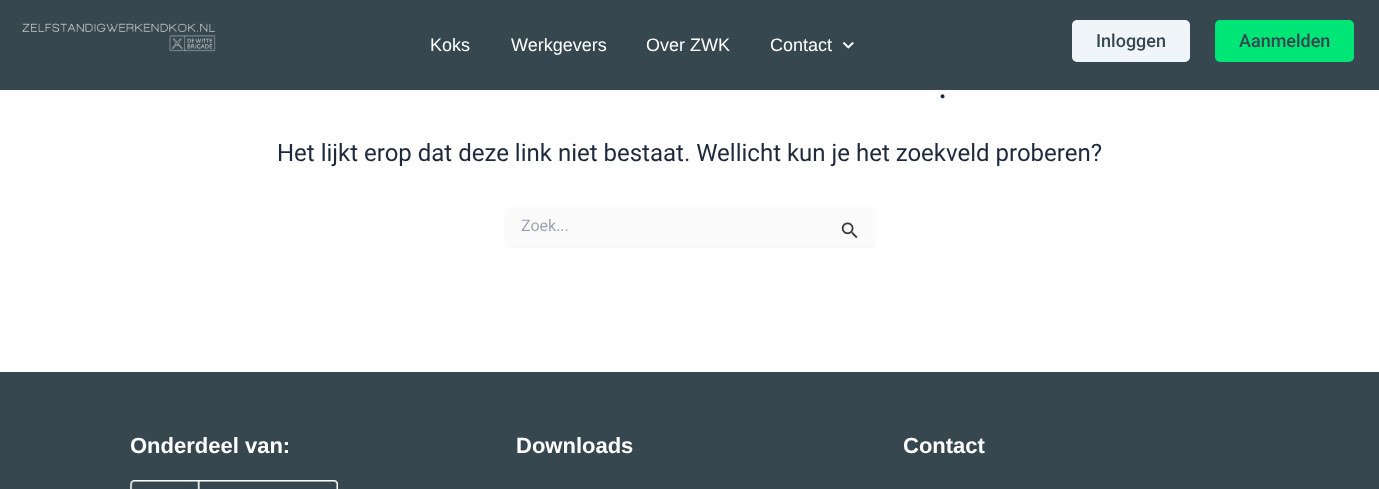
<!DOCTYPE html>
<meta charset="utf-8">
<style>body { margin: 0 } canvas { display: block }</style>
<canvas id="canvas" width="1379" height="489"></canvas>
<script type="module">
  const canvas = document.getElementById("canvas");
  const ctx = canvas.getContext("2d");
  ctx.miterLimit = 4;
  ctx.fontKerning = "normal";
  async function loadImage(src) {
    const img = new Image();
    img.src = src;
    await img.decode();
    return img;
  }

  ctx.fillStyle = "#ffffff";
  ctx.fillRect(0, 0, 1379, 489);
  ctx.fillStyle = "#37474f";
  ctx.fillRect(0, 0, 1379, 90);
  ctx.drawImage(await loadImage("img1.png"), 22, 23, 194, 29);
  ctx.font = "18px Liberation Sans";
  ctx.fillStyle = "#ffffff";
  ctx.fillText("Koks", 430, 51);
  ctx.fillText("Werkgevers", 511, 51);
  ctx.fillText("Over ZWK", 646, 51);
  ctx.fillText("Contact", 770, 51);
  ctx.drawImage(await loadImage("img2.png"), 843, 42, 11, 7);
  ctx.fillStyle = "#f0f5fa";
  ctx.beginPath();
  ctx.roundRect(1072, 20, 118, 42, 5);
  ctx.fill();
  ctx.font = "500 18px Roboto";
  ctx.fillStyle = "#37474f";
  ctx.fillText("Inloggen", 1096, 47);
  ctx.fillStyle = "#00e676";
  ctx.beginPath();
  ctx.roundRect(1215, 20, 139, 42, 5);
  ctx.fill();
  ctx.fillStyle = "#37474f";
  ctx.fillText("Aanmelden", 1239, 47);
  ctx.font = "36px Roboto";
  ctx.fillStyle = "#1e293b";
  ctx.fillText(".", 938, 98);
  ctx.font = "24px Roboto";
  ctx.fillText("Het lijkt erop dat deze link niet bestaat. Wellicht kun je het zoekveld proberen?", 277, 161);
  ctx.fillStyle = "rgba(0, 0, 0, 0.05)";
  ctx.filter = "blur(1px)";
  ctx.beginPath();
  ctx.roundRect(505, 207, 370, 40, 2);
  ctx.fill();
  ctx.filter = "none";
  ctx.fillStyle = "#fafafa";
  ctx.beginPath();
  ctx.roundRect(505.5, 206.5, 369, 39, 1.5);
  ctx.fill();
  ctx.strokeStyle = "#ffffff";
  ctx.stroke();
  ctx.font = "16px Roboto";
  ctx.fillStyle = "#9ca3af";
  ctx.fillText("Zoek...", 521, 231);
  ctx.drawImage(await loadImage("img3.png"), 841, 222, 17, 17);
  ctx.fillStyle = "#37474f";
  ctx.fillRect(0, 372, 1379, 117);
  ctx.font = "bold 22px Liberation Sans";
  ctx.fillStyle = "#ffffff";
  ctx.fillText("Onderdeel van:", 130, 453);
  ctx.drawImage(await loadImage("img4.png"), 130, 480, 208, 9);
  ctx.fillText("Downloads", 516, 453);
  ctx.fillText("Contact", 903, 453);
</script>
